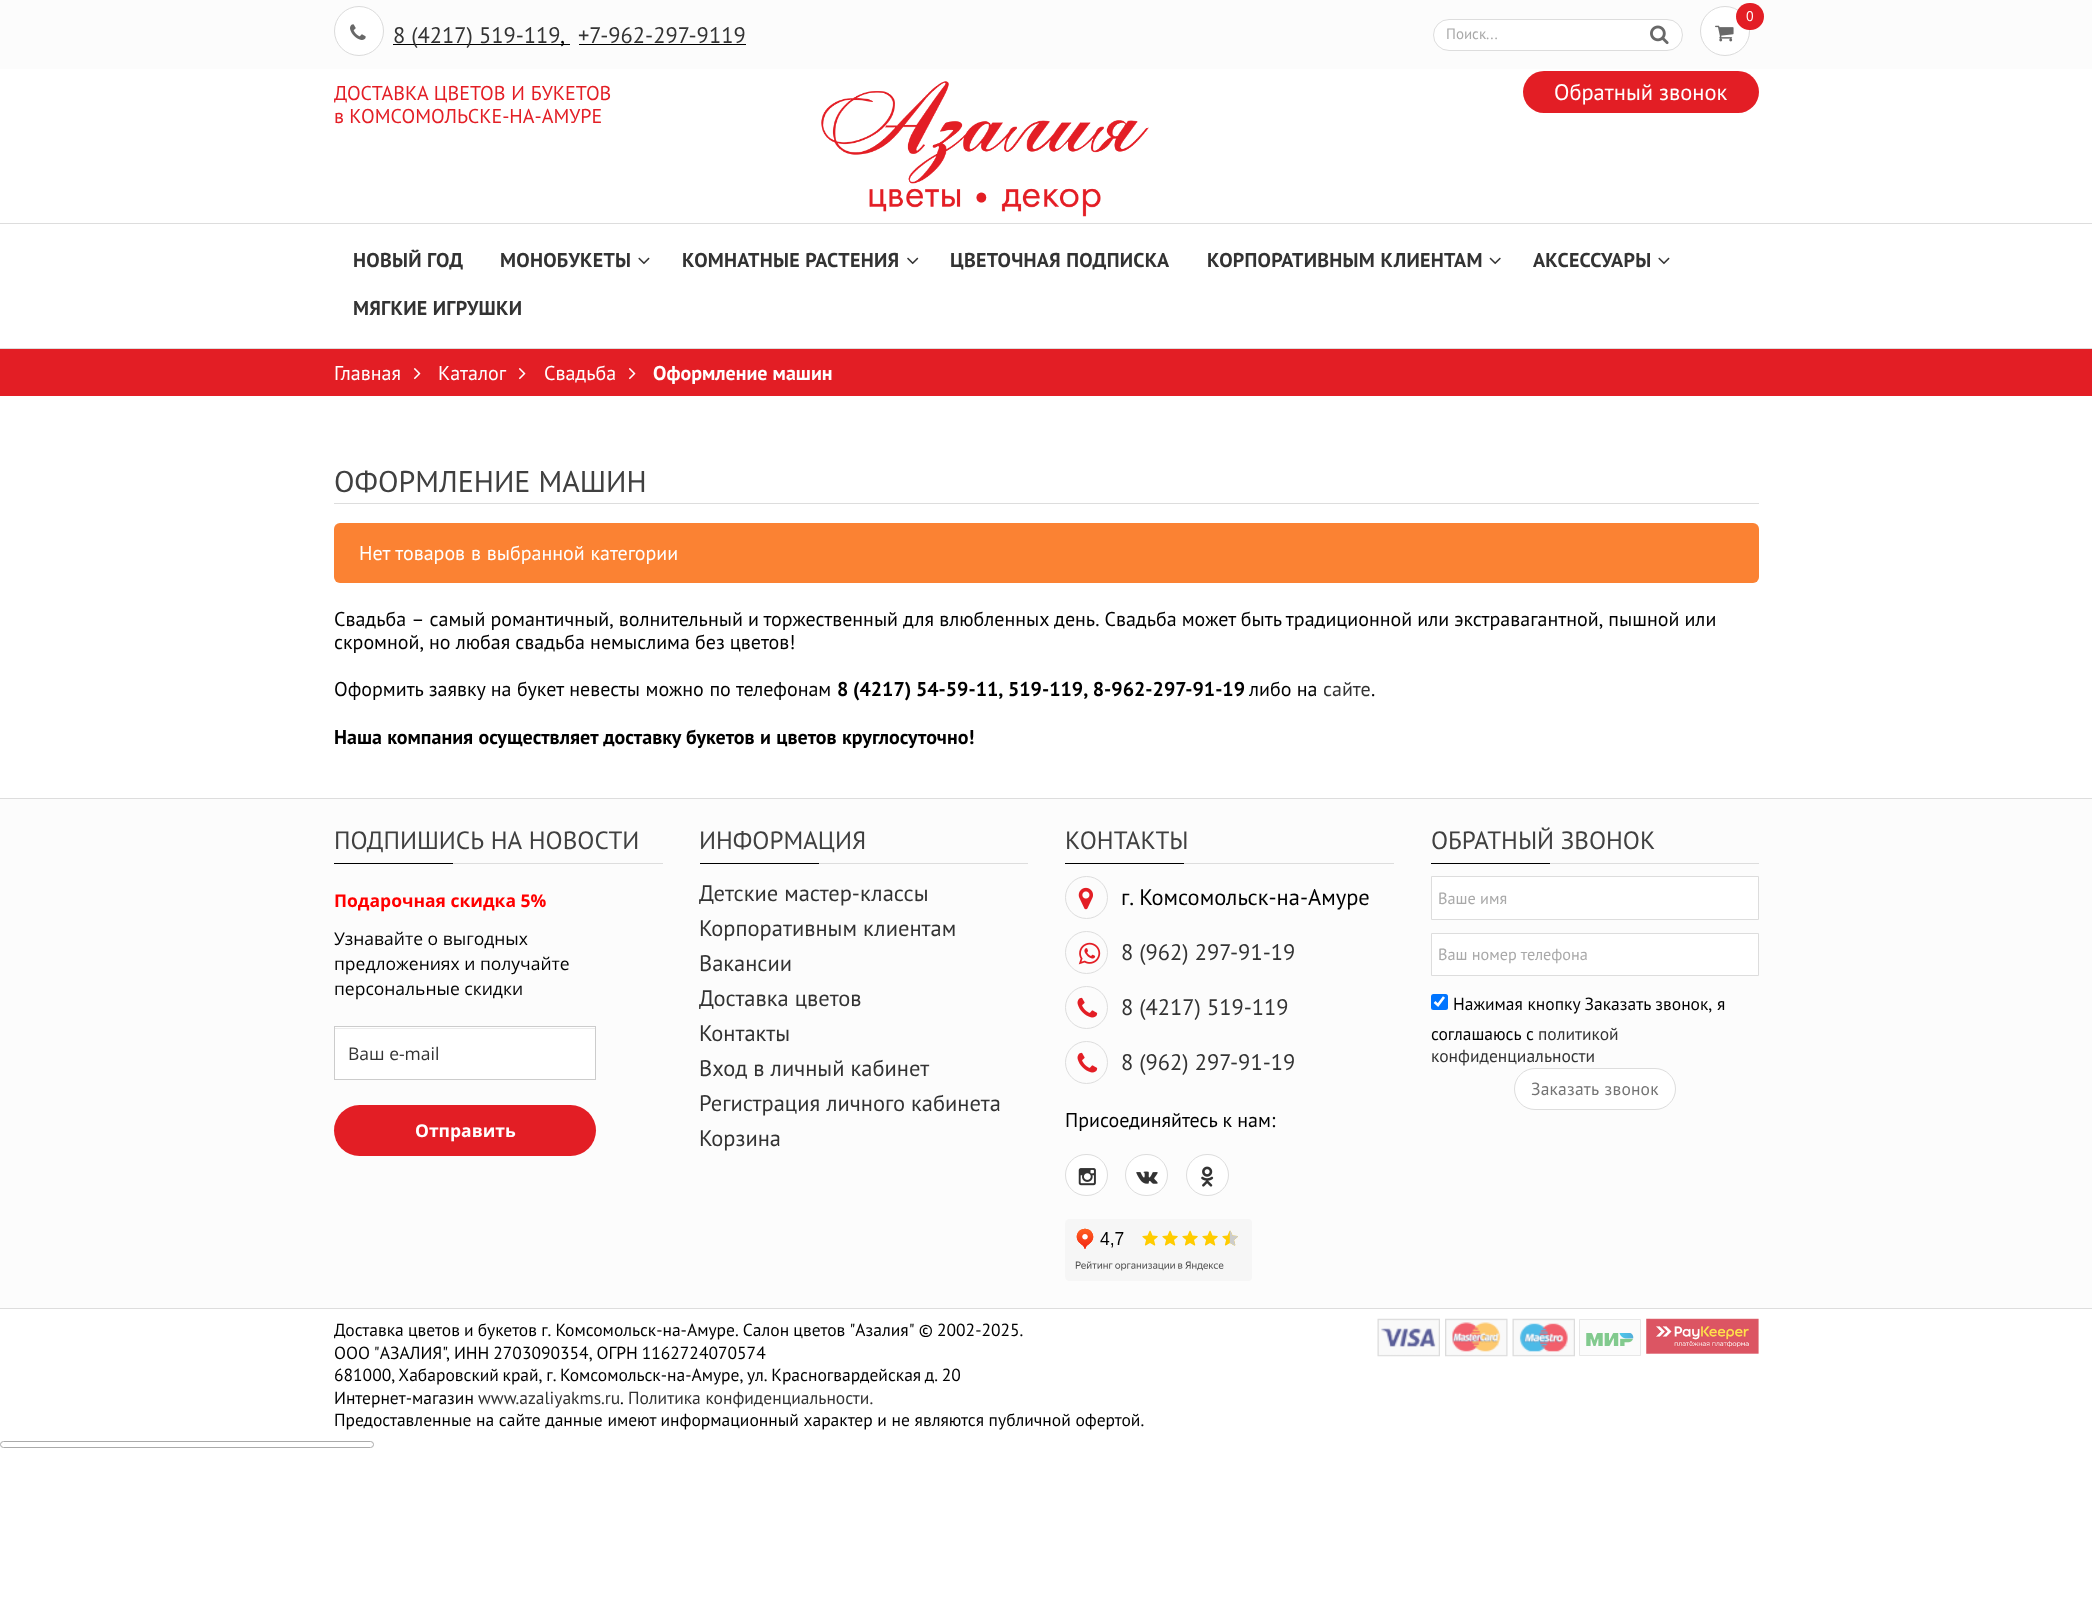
<!DOCTYPE html>
<meta charset="utf-8">
<style>body { margin: 0 } canvas { display: block }</style>
<canvas id="canvas" width="2092" height="1606"></canvas>
<script type="module">
  const canvas = document.getElementById("canvas");
  const ctx = canvas.getContext("2d");
  ctx.miterLimit = 4;
  ctx.fontKerning = "normal";
  async function loadImage(src) {
    const img = new Image();
    img.src = src;
    await img.decode();
    return img;
  }

  ctx.fillStyle = "#ffffff";
  ctx.fillRect(0, 0, 2092, 1606);
  ctx.fillStyle = "#fcfcfc";
  ctx.fillRect(0, 0, 2092, 69);
  ctx.fillStyle = "#ffffff";
  ctx.beginPath();
  ctx.arc(1725, 31, 24.5, 0, Math.PI * 2);
  ctx.fill();
  ctx.strokeStyle = "#dbdbdb";
  ctx.stroke();
  ctx.fillStyle = "#e31e25";
  ctx.beginPath();
  ctx.roundRect(1736, 3, 28, 27, 13.5);
  ctx.fill();
  ctx.font = "14px PT Sans";
  ctx.fillStyle = "#ffffff";
  ctx.fillText("0", 1746, 21);
  ctx.drawImage(await loadImage("img1.png"), 1715, 25, 19, 17);
  ctx.beginPath();
  ctx.arc(359, 31, 24.5, 0, Math.PI * 2);
  ctx.fill();
  ctx.stroke();
  ctx.drawImage(await loadImage("img2.png"), 350, 24, 16, 16);
  ctx.fillStyle = "#000000";
  ctx.fillRect(393, 44, 177, 1);
  ctx.font = "22.5px PT Sans";
  ctx.fillStyle = "#333333";
  ctx.fillText("8 (4217) 519-119", 393, 43);
  ctx.fillStyle = "#000000";
  ctx.fillText(",", 560, 43);
  ctx.fillStyle = "#333333";
  ctx.fillText("+7-962-297-9119", 578, 43);
  ctx.fillStyle = "#000000";
  ctx.fillRect(579, 44, 167, 1);
  ctx.fillStyle = "#ffffff";
  ctx.beginPath();
  ctx.roundRect(1433.5, 19.5, 249, 31, 15.5);
  ctx.fill();
  ctx.strokeStyle = "#dddddd";
  ctx.stroke();
  ctx.font = "15px PT Sans";
  ctx.fillStyle = "#a9a9a9";
  ctx.fillText("Поиск...", 1446, 39);
  ctx.drawImage(await loadImage("img3.png"), 1650, 25, 19, 20);
  ctx.wordSpacing = "0.5px";
  ctx.font = "20px PT Sans";
  ctx.fillStyle = "#e31e25";
  ctx.fillText("ДОСТАВКА ЦВЕТОВ И БУКЕТОВ", 334, 100);
  ctx.wordSpacing = "0px";
  ctx.fillText("в КОМСОМОЛЬСКЕ-НА-АМУРЕ", 334, 123);
  ctx.drawImage(await loadImage("img4.png"), 821, 81, 328, 136);
  ctx.beginPath();
  ctx.roundRect(1523, 71, 236, 42, 21);
  ctx.fill();
  ctx.font = "22.5px PT Sans";
  ctx.fillStyle = "#ffffff";
  ctx.fillText("Обратный звонок", 1554, 100);
  ctx.fillStyle = "#dddddd";
  ctx.fillRect(0, 223, 2092, 1);
  ctx.fillRect(0, 348, 2092, 1);
  ctx.letterSpacing = "0.25px";
  ctx.font = "bold 20px PT Sans";
  ctx.fillStyle = "#333333";
  ctx.fillText("НОВЫЙ ГОД", 353, 267);
  ctx.fillText("МОНОБУКЕТЫ", 500, 267);
  ctx.drawImage(await loadImage("img5.png"), 638, 257, 12, 8);
  ctx.fillText("КОМНАТНЫЕ РАСТЕНИЯ", 682, 267);
  ctx.drawImage(await loadImage("img6.png"), 907, 257, 12, 8);
  ctx.fillText("ЦВЕТОЧНАЯ ПОДПИСКА", 950, 267);
  ctx.fillText("КОРПОРАТИВНЫМ КЛИЕНТАМ", 1207, 267);
  ctx.drawImage(await loadImage("img7.png"), 1489, 257, 12, 8);
  ctx.fillText("АКСЕССУАРЫ", 1533, 267);
  ctx.drawImage(await loadImage("img5.png"), 1658, 257, 12, 8);
  ctx.fillText("МЯГКИЕ ИГРУШКИ", 353, 315);
  ctx.fillStyle = "#e31e25";
  ctx.fillRect(0, 349, 2092, 47);
  ctx.letterSpacing = "0px";
  ctx.font = "20px PT Sans";
  ctx.fillStyle = "#ffffff";
  ctx.fillText("Главная", 334, 380);
  ctx.drawImage(await loadImage("img8.png"), 413, 368, 8, 12);
  ctx.fillText("Каталог", 438, 380);
  ctx.drawImage(await loadImage("img8.png"), 518, 368, 8, 12);
  ctx.fillText("Свадьба", 544, 380);
  ctx.drawImage(await loadImage("img8.png"), 628, 368, 8, 12);
  ctx.font = "bold 20px PT Sans";
  ctx.fillText("Оформление машин", 653, 380);
  ctx.fillStyle = "#dddddd";
  ctx.fillRect(334, 503, 1425, 1);
  ctx.font = "30px PT Sans";
  ctx.fillStyle = "#404040";
  ctx.fillText("ОФОРМЛЕНИЕ МАШИН", 334, 492);
  ctx.fillStyle = "#fb8233";
  ctx.beginPath();
  ctx.roundRect(334, 523, 1425, 60, 6);
  ctx.fill();
  ctx.wordSpacing = "0.5px";
  ctx.font = "20px PT Sans";
  ctx.fillStyle = "#ffffff";
  ctx.fillText("Нет товаров в выбранной категории", 359, 560);
  ctx.wordSpacing = "-0.25px";
  ctx.fillStyle = "#000000";
  ctx.fillText("Свадьба – самый романтичный, волнительный и торжественный для влюбленных день. Свадьба может быть традиционной или экстравагантной, пышной или", 334, 626);
  ctx.fillText("скромной, но любая свадьба немыслима без цветов!", 334, 649);
  ctx.wordSpacing = "0.25px";
  ctx.fillText("Оформить заявку на букет невесты можно по телефонам", 334, 696);
  ctx.wordSpacing = "-0.5px";
  ctx.font = "bold 20px PT Sans";
  ctx.fillText("8 (4217) 54-59-11, 519-119, 8-962-297-91-19", 837, 696);
  ctx.wordSpacing = "0px";
  ctx.font = "20px PT Sans";
  ctx.fillText("либо на", 1249, 696);
  ctx.fillStyle = "#333333";
  ctx.fillText("сайте", 1323, 696);
  ctx.fillStyle = "#000000";
  ctx.fillText(".", 1371, 696);
  ctx.wordSpacing = "0.25px";
  ctx.font = "bold 20px PT Sans";
  ctx.fillText("Наша компания осуществляет доставку букетов и цветов круглосуточно!", 334, 744);
  ctx.fillStyle = "#fcfcfc";
  ctx.fillRect(0, 799, 2092, 509);
  ctx.fillStyle = "#dddddd";
  ctx.fillRect(0, 798, 2092, 1);
  ctx.fillRect(0, 1308, 2092, 1);
  ctx.fillRect(453, 863, 210, 1);
  ctx.wordSpacing = "1px";
  ctx.font = "25px PT Sans";
  ctx.fillStyle = "#404040";
  ctx.fillText("ПОДПИШИСЬ НА НОВОСТИ", 334, 849);
  ctx.fillStyle = "#000000";
  ctx.fillRect(334, 863, 119, 1);
  ctx.wordSpacing = "0px";
  ctx.font = "bold 17.5px Open Sans";
  ctx.fillStyle = "#ff0000";
  ctx.fillText("Подарочная скидка 5%", 334, 907);
  ctx.font = "17.5px Open Sans";
  ctx.fillStyle = "#000000";
  ctx.fillText("Узнавайте о выгодных", 334, 945);
  ctx.fillText("предложениях и получайте", 334, 970);
  ctx.fillText("персональные скидки", 334, 995);
  ctx.fillStyle = "#ffffff";
  ctx.fillRect(335, 1027, 260, 52);
  ctx.fillStyle = "#ececec";
  ctx.fillRect(335, 1028, 260, 1);
  ctx.strokeStyle = "#cccccc";
  ctx.strokeRect(334.5, 1026.5, 261, 53);
  ctx.fillStyle = "#333333";
  ctx.fillText("Ваш e-mail", 348, 1060);
  ctx.fillStyle = "#e31e25";
  ctx.beginPath();
  ctx.roundRect(334, 1105, 262, 51, 25.5);
  ctx.fill();
  ctx.font = "bold 17.5px Open Sans";
  ctx.fillStyle = "#ffffff";
  ctx.fillText("Отправить", 415, 1137);
  ctx.fillStyle = "#dddddd";
  ctx.fillRect(819, 863, 209, 1);
  ctx.font = "25px PT Sans";
  ctx.fillStyle = "#404040";
  ctx.fillText("ИНФОРМАЦИЯ", 699, 849);
  ctx.fillStyle = "#000000";
  ctx.fillRect(700, 863, 119, 1);
  ctx.font = "22.5px PT Sans";
  ctx.fillStyle = "#333333";
  ctx.fillText("Детские мастер-классы", 699, 901);
  ctx.fillText("Корпоративным клиентам", 699, 936);
  ctx.fillText("Вакансии", 699, 971);
  ctx.fillText("Доставка цветов", 699, 1006);
  ctx.fillText("Контакты", 699, 1041);
  ctx.fillText("Вход в личный кабинет", 699, 1076);
  ctx.fillText("Регистрация личного кабинета", 699, 1111);
  ctx.fillText("Корзина", 699, 1146);
  ctx.fillStyle = "#dddddd";
  ctx.fillRect(1184, 863, 210, 1);
  ctx.font = "25px PT Sans";
  ctx.fillStyle = "#404040";
  ctx.fillText("КОНТАКТЫ", 1065, 849);
  ctx.fillStyle = "#000000";
  ctx.fillRect(1065, 863, 119, 1);
  ctx.beginPath();
  ctx.arc(1086.5, 897.5, 21, 0, Math.PI * 2);
  ctx.strokeStyle = "#dddddd";
  ctx.stroke();
  ctx.drawImage(await loadImage("img9.png"), 1078, 887, 15, 23);
  ctx.wordSpacing = "-1px";
  ctx.font = "22.5px PT Sans";
  ctx.fillText("г. Комсомольск-на-Амуре", 1121, 905);
  ctx.beginPath();
  ctx.arc(1086.5, 952.5, 21, 0, Math.PI * 2);
  ctx.stroke();
  ctx.drawImage(await loadImage("img10.png"), 1078, 942, 23, 23);
  ctx.wordSpacing = "0px";
  ctx.fillStyle = "#333333";
  ctx.fillText("8 (962) 297-91-19", 1121, 960);
  ctx.beginPath();
  ctx.arc(1086.5, 1007.5, 21, 0, Math.PI * 2);
  ctx.stroke();
  ctx.drawImage(await loadImage("img11.png"), 1077, 997, 21, 21);
  ctx.fillText("8 (4217) 519-119", 1121, 1015);
  ctx.beginPath();
  ctx.arc(1086.5, 1062.5, 21, 0, Math.PI * 2);
  ctx.stroke();
  ctx.drawImage(await loadImage("img11.png"), 1077, 1052, 21, 21);
  ctx.fillText("8 (962) 297-91-19", 1121, 1070);
  ctx.font = "20px PT Sans";
  ctx.fillStyle = "#000000";
  ctx.fillText("Присоединяйтесь к нам:", 1065, 1127);
  ctx.fillStyle = "#ffffff";
  ctx.beginPath();
  ctx.roundRect(1065.5, 1154.5, 42, 41, 20.5);
  ctx.fill();
  ctx.stroke();
  ctx.drawImage(await loadImage("img12.png"), 1078, 1168, 18, 18);
  ctx.beginPath();
  ctx.roundRect(1125.5, 1154.5, 42, 41, 20.5);
  ctx.fill();
  ctx.stroke();
  ctx.drawImage(await loadImage("img13.png"), 1136, 1171, 22, 13);
  ctx.beginPath();
  ctx.roundRect(1186.5, 1154.5, 42, 41, 20.5);
  ctx.fill();
  ctx.stroke();
  ctx.drawImage(await loadImage("img14.png"), 1201, 1166, 13, 21);
  ctx.drawImage(await loadImage("img15.png"), 1065, 1219, 187, 62);
  ctx.fillStyle = "#dddddd";
  ctx.fillRect(1550, 863, 209, 1);
  ctx.font = "25px PT Sans";
  ctx.fillStyle = "#404040";
  ctx.fillText("ОБРАТНЫЙ ЗВОНОК", 1431, 849);
  ctx.fillStyle = "#000000";
  ctx.fillRect(1431, 863, 119, 1);
  ctx.fillStyle = "#ffffff";
  ctx.beginPath();
  ctx.rect(1431.5, 876.5, 327, 43);
  ctx.fill();
  ctx.stroke();
  ctx.font = "16.25px PT Sans";
  ctx.fillStyle = "#a9a9a9";
  ctx.fillText("Ваше имя", 1438, 904);
  ctx.fillStyle = "#ffffff";
  ctx.beginPath();
  ctx.rect(1431.5, 933.5, 327, 42);
  ctx.fill();
  ctx.stroke();
  ctx.fillStyle = "#a9a9a9";
  ctx.fillText("Ваш номер телефона", 1438, 960);
  ctx.fillStyle = "#0075ff";
  ctx.beginPath();
  ctx.roundRect(1431, 994, 17, 16, 2.5);
  ctx.fill();
  ctx.beginPath();
  ctx.moveTo(1434.5, 1002);
  ctx.lineTo(1438, 1005);
  ctx.lineTo(1444, 997);
  ctx.strokeStyle = "#ffffff";
  ctx.lineWidth = 2.6;
  ctx.stroke();
  ctx.font = "17.5px PT Sans";
  ctx.fillStyle = "#000000";
  ctx.fillText("Нажимая кнопку Заказать звонок, я", 1453, 1010);
  ctx.wordSpacing = "0.25px";
  ctx.fillText("соглашаюсь с", 1431, 1040);
  ctx.wordSpacing = "0px";
  ctx.fillStyle = "#333333";
  ctx.fillText("политикой", 1538, 1040);
  ctx.fillText("конфиденциальности", 1431, 1062);
  ctx.fillStyle = "#ffffff";
  ctx.beginPath();
  ctx.roundRect(1514.5, 1068.5, 161, 41, 20.5);
  ctx.fill();
  ctx.strokeStyle = "#dddddd";
  ctx.lineWidth = 1;
  ctx.stroke();
  ctx.letterSpacing = "0.2px";
  ctx.wordSpacing = "1px";
  ctx.fillStyle = "#747474";
  ctx.fillText("Заказать звонок", 1531, 1095);
  ctx.letterSpacing = "0px";
  ctx.wordSpacing = "-0.5px";
  ctx.fillStyle = "#000000";
  ctx.fillText("Доставка цветов и букетов г. Комсомольск-на-Амуре. Cалон цветов \"Азалия\" © 2002-2025.", 334, 1336);
  ctx.wordSpacing = "-0.75px";
  ctx.fillText("ООО \"АЗАЛИЯ\", ИНН 2703090354, ОГРН 1162724070574", 334, 1359);
  ctx.wordSpacing = "-1px";
  ctx.fillText("681000, Хабаровский край, г. Комсомольск-на-Амуре, ул. Красногвардейская д. 20", 334, 1381);
  ctx.wordSpacing = "0px";
  ctx.fillText("Интернет-магазин", 334, 1404);
  ctx.fillStyle = "#333333";
  ctx.fillText("www.azaliyakms.ru", 478, 1404);
  ctx.fillStyle = "#000000";
  ctx.fillText(".", 620, 1404);
  ctx.fillStyle = "#333333";
  ctx.fillText("Политика конфиденциальности.", 628, 1404);
  ctx.fillStyle = "#000000";
  ctx.fillText("Предоставленные на сайте данные имеют информационный характер и не являются публичной офертой.", 334, 1426);
  ctx.drawImage(await loadImage("img16.png"), 1377, 1318, 63, 39);
  ctx.drawImage(await loadImage("img17.png"), 1445, 1318, 63, 39);
  ctx.drawImage(await loadImage("img18.png"), 1512, 1318, 63, 39);
  ctx.fillStyle = "#fbfbfb";
  ctx.beginPath();
  ctx.rect(1579.5, 1319.5, 61, 36);
  ctx.fill();
  ctx.strokeStyle = "#e7e7e7";
  ctx.stroke();
  ctx.drawImage(await loadImage("img19.png"), 1586, 1333, 48, 13);
  ctx.drawImage(await loadImage("img20.png"), 1646, 1318, 113, 36);
  ctx.beginPath();
  ctx.roundRect(0.5, 1441.5, 373, 6, 3);
  ctx.strokeStyle = "#aaaaaa";
  ctx.stroke();
</script>
